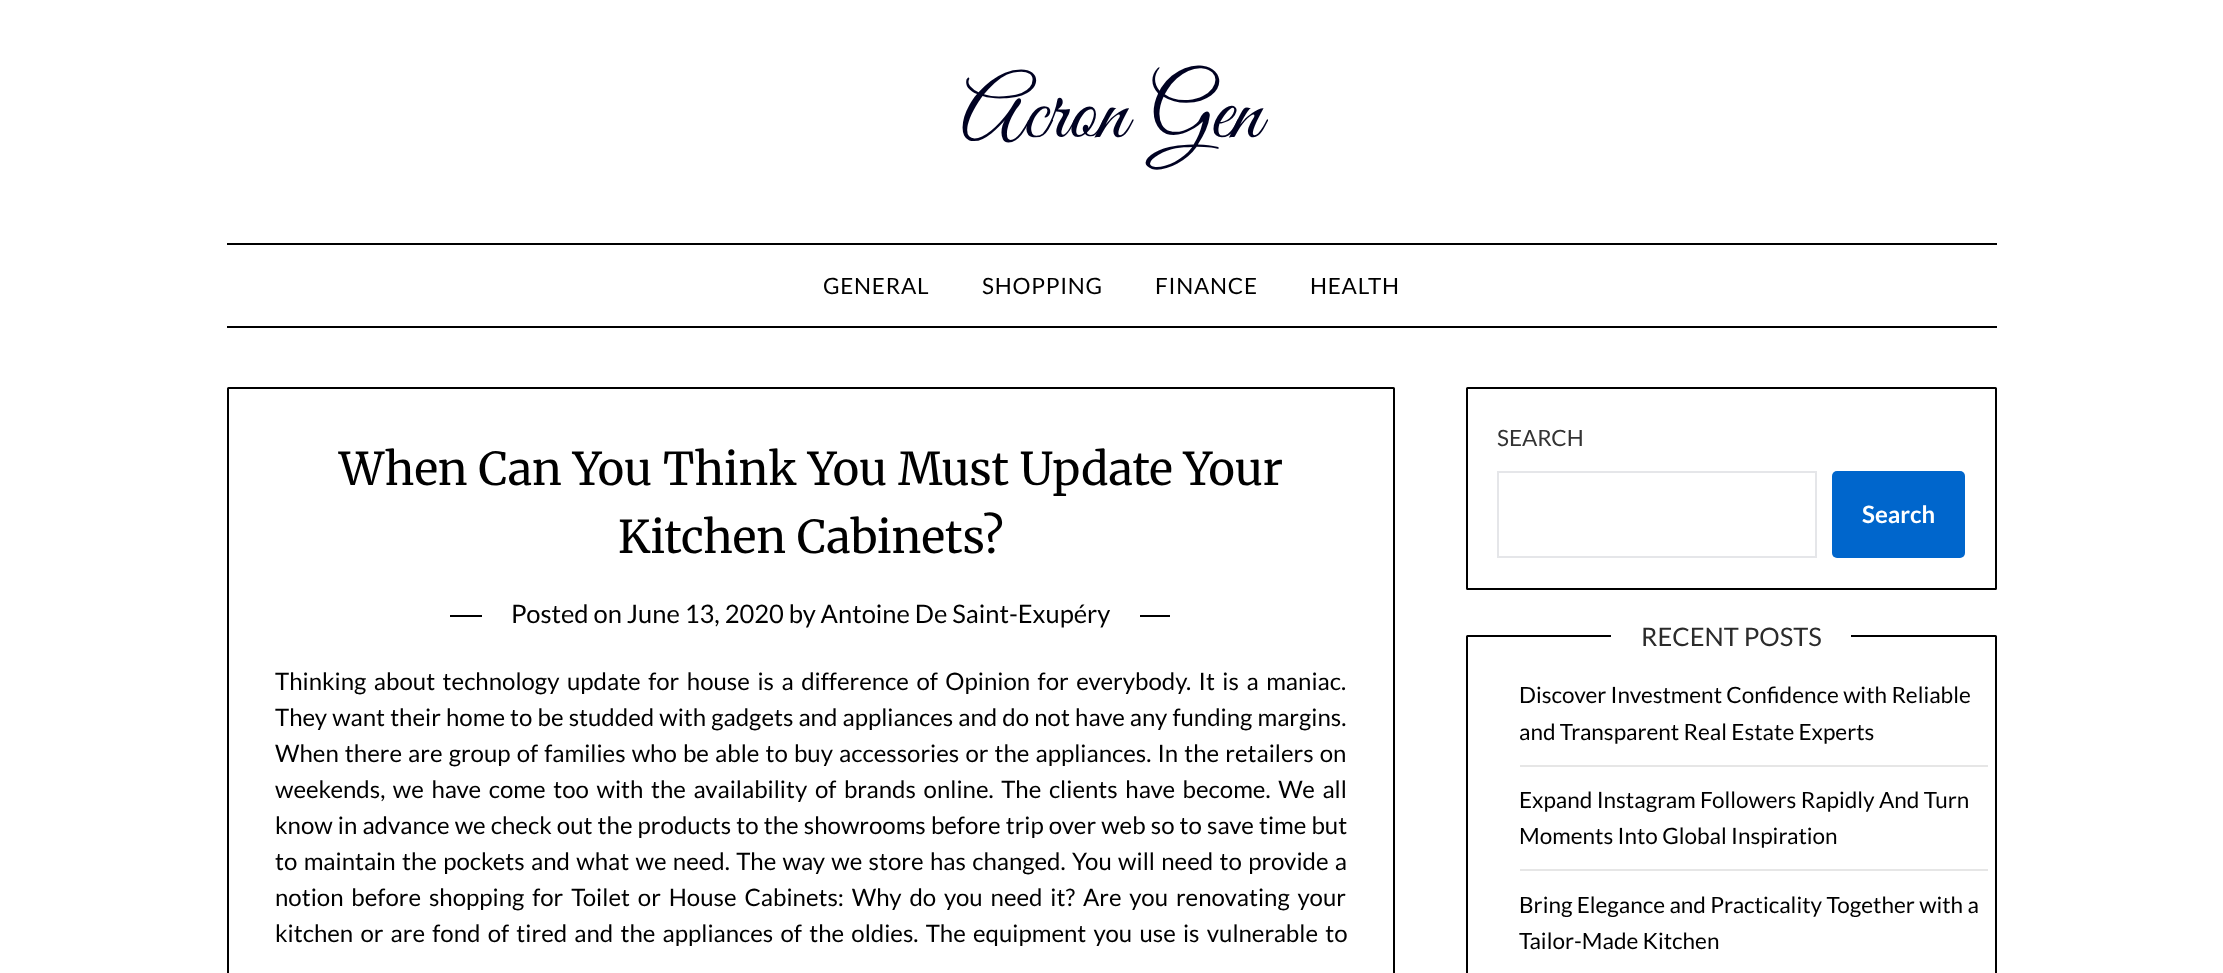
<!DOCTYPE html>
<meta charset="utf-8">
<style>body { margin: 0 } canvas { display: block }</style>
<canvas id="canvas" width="2223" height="973"></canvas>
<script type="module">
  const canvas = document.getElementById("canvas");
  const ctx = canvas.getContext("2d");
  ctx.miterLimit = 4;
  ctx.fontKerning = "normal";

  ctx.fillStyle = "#ffffff";
  ctx.fillRect(0, 0, 2223, 973);
  ctx.font = "87px Great Vibes";
  ctx.fillStyle = "#000222";
  ctx.fillText("Acron Gen", 961, 137);
  ctx.fillStyle = "#000000";
  ctx.fillRect(227, 243, 1770, 2);
  ctx.fillRect(227, 326, 1770, 2);
  ctx.letterSpacing = "0.75px";
  ctx.font = "22.5px Lato";
  ctx.fillText("GENERAL", 823, 294);
  ctx.fillText("SHOPPING", 982, 294);
  ctx.fillText("FINANCE", 1155, 294);
  ctx.fillText("HEALTH", 1310, 294);
  ctx.beginPath();
  ctx.roundRect(228, 388, 1166, 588, 0.5);
  ctx.strokeStyle = "#000000";
  ctx.lineWidth = 2;
  ctx.stroke();
  ctx.letterSpacing = "0px";
  ctx.font = "45px Merriweather";
  ctx.fillText("When Can You Think You Must Update Your", 339, 485);
  ctx.fillText("Kitchen Cabinets?", 618, 553);
  ctx.fillRect(450, 615, 720, 2);
  ctx.fillStyle = "#ffffff";
  ctx.fillRect(482, 615, 658, 2);
  ctx.font = "25.5px Lato";
  ctx.fillStyle = "#000000";
  ctx.fillText("Posted on June 13, 2020 by Antoine De Saint-Exupéry", 511, 623);
  ctx.wordSpacing = "2.9px";
  ctx.font = "24px Lato";
  ctx.fillText("Thinking about technology update for house is a difference of Opinion for everybody. It is a maniac.", 275, 690);
  ctx.wordSpacing = "0.5px";
  ctx.fillText("They want their home to be studded with gadgets and appliances and do not have any funding margins.", 275, 726);
  ctx.wordSpacing = "1.5px";
  ctx.fillText("When there are group of families who be able to buy accessories or the appliances. In the retailers on", 275, 762);
  ctx.wordSpacing = "3px";
  ctx.fillText("weekends, we have come too with the availability of brands online. The clients have become. We all", 275, 798);
  ctx.wordSpacing = "0.5px";
  ctx.fillText("know in advance we check out the products to the showrooms before trip over web so to save time but", 275, 834);
  ctx.wordSpacing = "1.7px";
  ctx.fillText("to maintain the pockets and what we need. The way we store has changed. You will need to provide a", 275, 870);
  ctx.wordSpacing = "3.25px";
  ctx.fillText("notion before shopping for Toilet or House Cabinets: Why do you need it? Are you renovating your", 275, 906);
  ctx.wordSpacing = "2.6px";
  ctx.fillText("kitchen or are fond of tired and the appliances of the oldies. The equipment you use is vulnerable to", 275, 942);
  ctx.beginPath();
  ctx.roundRect(1467, 388, 529, 201, 0.5);
  ctx.stroke();
  ctx.wordSpacing = "0px";
  ctx.font = "22.5px Lato";
  ctx.fillStyle = "#333333";
  ctx.fillText("SEARCH", 1497, 446);
  ctx.strokeStyle = "#e5e6e9";
  ctx.strokeRect(1498, 472, 318, 85);
  ctx.fillStyle = "#0066cc";
  ctx.beginPath();
  ctx.roundRect(1832, 471, 133, 87, 5);
  ctx.fill();
  ctx.font = "bold 24px Lato";
  ctx.fillStyle = "#ffffff";
  ctx.fillText("Search", 1862, 523);
  ctx.beginPath();
  ctx.roundRect(1467, 636, 529, 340, 0.5);
  ctx.strokeStyle = "#000000";
  ctx.stroke();
  ctx.fillRect(1611, 635, 240, 2);
  ctx.font = "25.5px Lato";
  ctx.fillStyle = "#2b2b2b";
  ctx.fillText("RECENT POSTS", 1641, 646);
  ctx.fillStyle = "#e6e6e6";
  ctx.fillRect(1520, 765, 468, 2);
  ctx.font = "22.5px Lato";
  ctx.fillStyle = "#000000";
  ctx.fillText("Discover Investment Confidence with Reliable", 1519, 703);
  ctx.fillText("and Transparent Real Estate Experts", 1519, 740);
  ctx.fillStyle = "#e6e6e6";
  ctx.fillRect(1520, 869, 468, 2);
  ctx.fillStyle = "#000000";
  ctx.fillText("Expand Instagram Followers Rapidly And Turn", 1519, 808);
  ctx.fillText("Moments Into Global Inspiration", 1519, 844);
  ctx.fillText("Bring Elegance and Practicality Together with a", 1519, 913);
  ctx.fillText("Tailor-Made Kitchen", 1519, 949);
</script>
